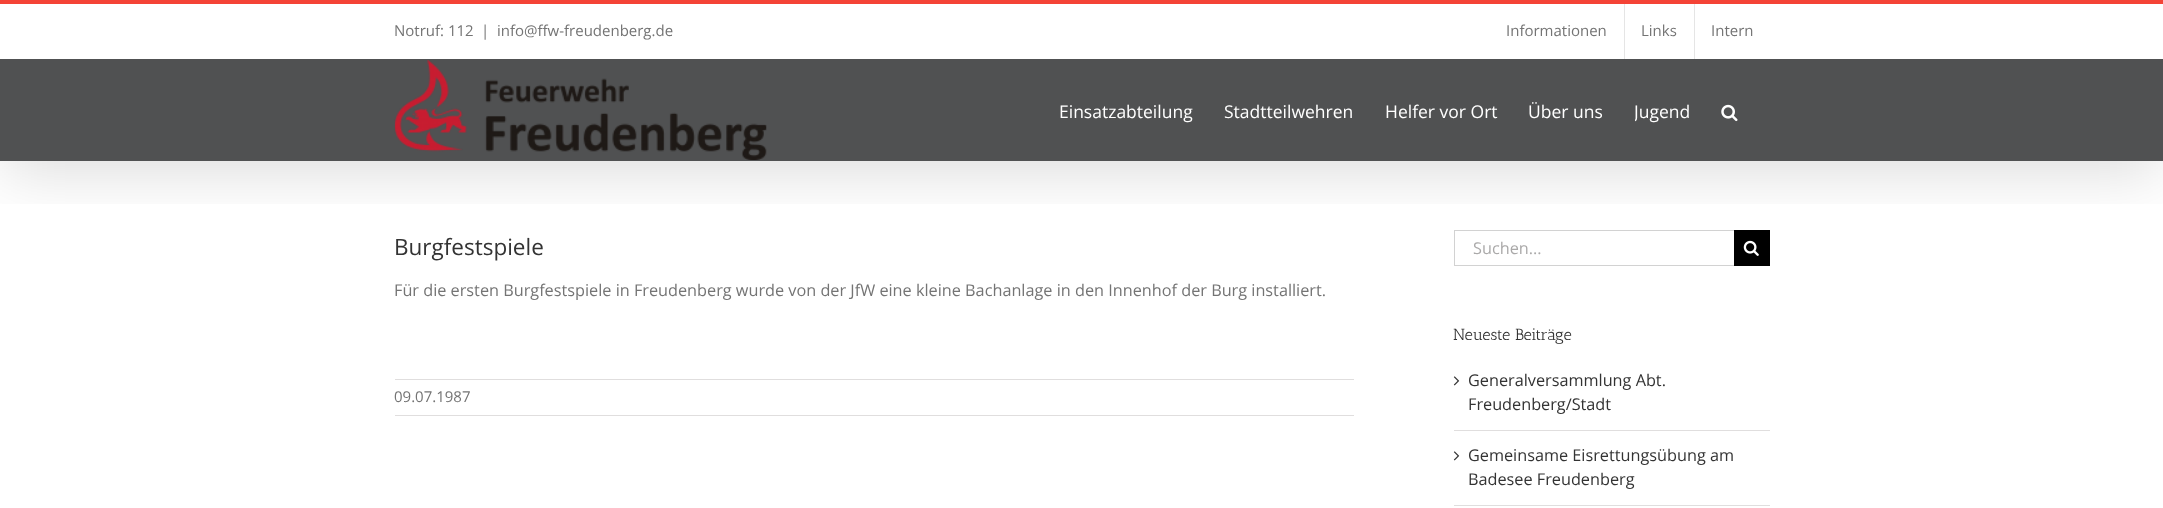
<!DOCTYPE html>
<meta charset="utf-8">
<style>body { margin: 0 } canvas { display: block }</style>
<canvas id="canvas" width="2163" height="508"></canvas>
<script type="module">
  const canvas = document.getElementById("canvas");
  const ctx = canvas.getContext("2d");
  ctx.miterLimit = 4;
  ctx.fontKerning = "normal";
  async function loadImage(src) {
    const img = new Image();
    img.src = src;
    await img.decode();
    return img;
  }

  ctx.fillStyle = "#ffffff";
  ctx.fillRect(0, 0, 2163, 508);
  ctx.fillStyle = "#d2d2d2";
  ctx.fillRect(1454, 230, 280, 1);
  ctx.fillRect(1454, 265, 280, 1);
  ctx.fillRect(1454, 230, 1, 36);
  ctx.fillStyle = "#000000";
  ctx.fillRect(1734, 230, 36, 36);
  ctx.drawImage(await loadImage("img3.png"), 1743, 240, 16, 16);
  ctx.save();
  ctx.beginPath();
  ctx.rect(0, 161, 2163, 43);
  ctx.clip();
  ctx.fillStyle = "rgba(0, 0, 0, 0.14)";
  ctx.filter = "blur(31px)";
  ctx.beginPath();
  ctx.rect(3, 15, 2158, 156);
  ctx.fill();
  ctx.filter = "none";
  ctx.restore();
  ctx.fillStyle = "#f44336";
  ctx.fillRect(0, 0, 2163, 4);
  ctx.fillStyle = "#505152";
  ctx.fillRect(0, 59, 2163, 102);
  ctx.font = "15px Open Sans";
  ctx.fillStyle = "#747474";
  ctx.fillText("Notruf: 112", 394, 36);
  ctx.fillText("|", 481, 36);
  ctx.fillText("info@ffw-freudenberg.de", 497, 36);
  ctx.fillText("Informationen", 1506, 36);
  ctx.fillStyle = "#e5e5e5";
  ctx.fillRect(1624, 4, 1, 55);
  ctx.fillStyle = "#747474";
  ctx.fillText("Links", 1641, 36);
  ctx.fillStyle = "#e5e5e5";
  ctx.fillRect(1694, 4, 1, 55);
  ctx.fillStyle = "#747474";
  ctx.fillText("Intern", 1711, 36);
  ctx.drawImage(await loadImage("img1.png"), 394, 60, 373, 100);
  ctx.font = "17.5px Open Sans";
  ctx.fillStyle = "#ffffff";
  ctx.fillText("Einsatzabteilung", 1059, 118);
  ctx.fillText("Stadtteilwehren", 1224, 118);
  ctx.fillText("Helfer vor Ort", 1385, 118);
  ctx.fillText("Über uns", 1528, 118);
  ctx.save();
  ctx.beginPath();
  ctx.rect(1635, 60, 86, 100);
  ctx.clip();
  ctx.fillText("Jugend", 1634, 118);
  ctx.restore();
  ctx.drawImage(await loadImage("img2.png"), 1721, 104, 17, 18);
  ctx.font = "22.5px Open Sans";
  ctx.fillStyle = "#333333";
  ctx.fillText("Burgfestspiele", 394, 255);
  ctx.font = "16.25px Open Sans";
  ctx.fillStyle = "#747474";
  ctx.fillText("Für die ersten Burgfestspiele in Freudenberg wurde von der JfW eine kleine Bachanlage in den Innenhof der Burg installiert.", 394, 296);
  ctx.fillStyle = "#e0dede";
  ctx.fillRect(395, 379, 959, 1);
  ctx.fillRect(395, 415, 959, 1);
  ctx.font = "15px Open Sans";
  ctx.fillStyle = "#747474";
  ctx.fillText("09.07.1987", 394, 402);
  ctx.font = "16.25px Open Sans";
  ctx.fillStyle = "#aaa9a9";
  ctx.fillText("Suchen...", 1473, 254);
  ctx.font = "16.25px Antic Slab";
  ctx.fillStyle = "#333333";
  ctx.fillText("Neueste Beiträge", 1453, 340);
  ctx.fillStyle = "#e0dede";
  ctx.fillRect(1454, 430, 316, 1);
  ctx.drawImage(await loadImage("img4.png"), 1453, 376, 7, 10);
  ctx.font = "16.25px Open Sans";
  ctx.fillStyle = "#333333";
  ctx.fillText("Generalversammlung Abt.", 1468, 386);
  ctx.fillText("Freudenberg/Stadt", 1468, 410);
  ctx.fillStyle = "#e0dede";
  ctx.fillRect(1454, 505, 316, 1);
  ctx.drawImage(await loadImage("img4.png"), 1453, 451, 7, 10);
  ctx.fillStyle = "#333333";
  ctx.fillText("Gemeinsame Eisrettungsübung am", 1468, 461);
  ctx.fillText("Badesee Freudenberg", 1468, 485);
</script>
